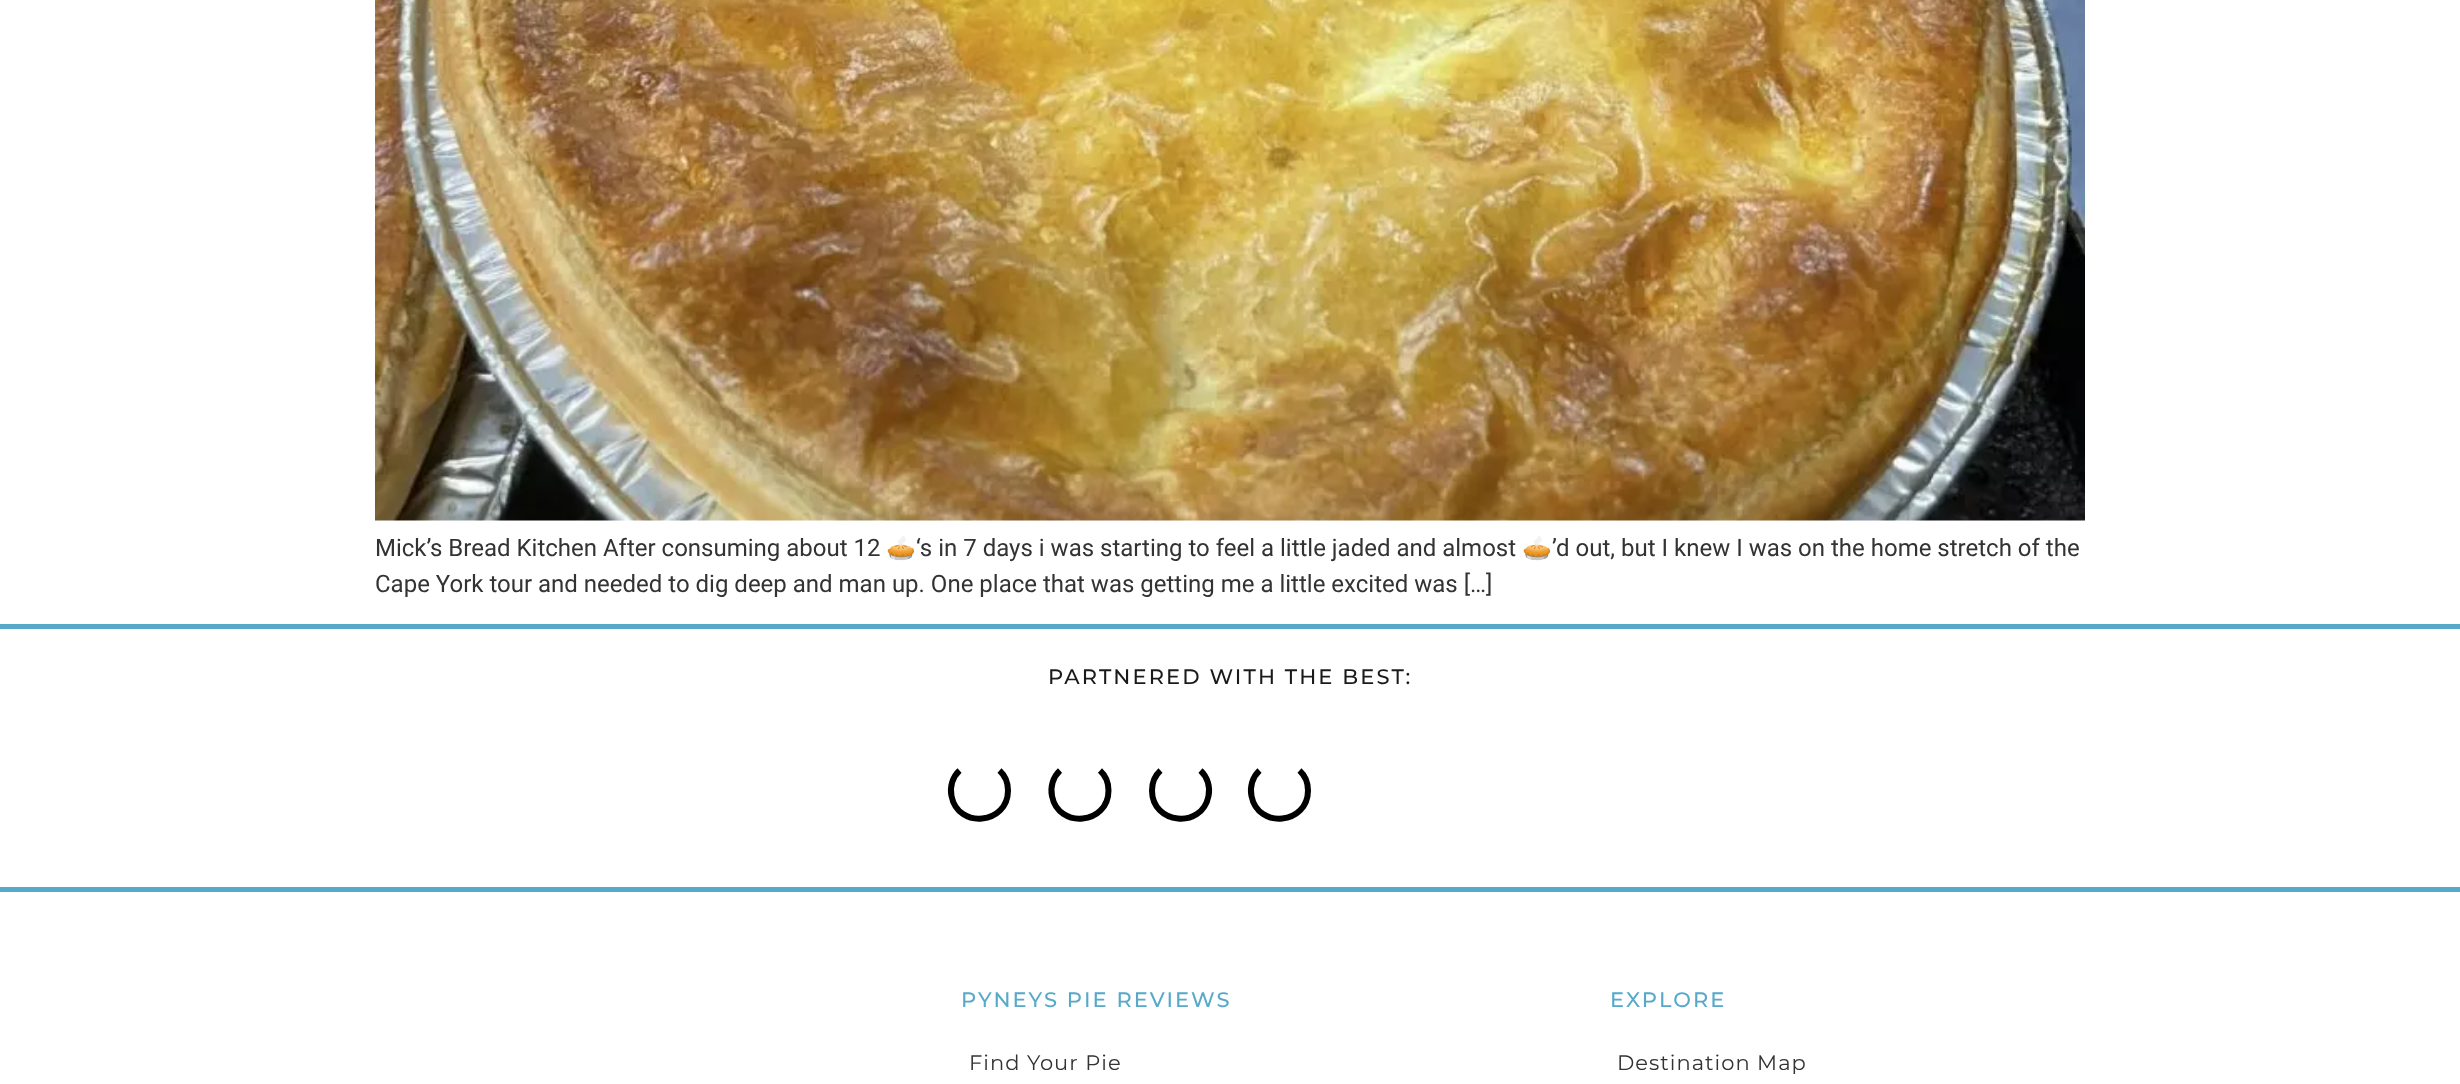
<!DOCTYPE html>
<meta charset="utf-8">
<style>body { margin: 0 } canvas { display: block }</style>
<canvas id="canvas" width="2460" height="1084"></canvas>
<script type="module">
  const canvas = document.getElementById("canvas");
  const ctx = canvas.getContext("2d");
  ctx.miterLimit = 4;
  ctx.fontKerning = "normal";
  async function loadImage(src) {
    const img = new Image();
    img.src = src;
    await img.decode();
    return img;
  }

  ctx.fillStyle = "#ffffff";
  ctx.fillRect(0, 0, 2460, 1084);
  ctx.drawImage(await loadImage("img1.png"), 375, 0, 1710, 521);
  ctx.font = "24px Roboto";
  ctx.fillStyle = "#333333";
  ctx.fillText("Mick’s Bread Kitchen After consuming about 12", 375, 556);
  ctx.font = "24px Noto Color Emoji";
  ctx.fillText("🥧", 886, 556);
  ctx.font = "24px Roboto";
  ctx.fillText("‘s in 7 days i was starting to feel a little jaded and almost", 916, 556);
  ctx.font = "24px Noto Color Emoji";
  ctx.fillText("🥧", 1522, 556);
  ctx.font = "24px Roboto";
  ctx.fillText("’d out, but I knew I was on the home stretch of the", 1552, 556);
  ctx.fillText("Cape York tour and needed to dig deep and man up. One place that was getting me a little excited was […]", 375, 592);
  ctx.fillStyle = "#56a9c8";
  ctx.fillRect(0, 624, 2460, 5);
  ctx.letterSpacing = "2.1px";
  ctx.font = "500 21px Montserrat";
  ctx.fillStyle = "#1a1a1a";
  ctx.fillText("PARTNERED WITH THE BEST:", 1048, 684);
  ctx.beginPath();
  ctx.moveTo(999.5, 770.5);
  ctx.bezierCurveTo(1005, 775.5, 1008, 783, 1008, 790.5);
  ctx.bezierCurveTo(1008, 824.5, 958, 829.5, 951.5, 796);
  ctx.bezierCurveTo(949.5, 787, 952.5, 777, 959.5, 770.5);
  ctx.strokeStyle = "#000000";
  ctx.lineWidth = 6;
  ctx.stroke();
  ctx.beginPath();
  ctx.moveTo(1100, 770.5);
  ctx.bezierCurveTo(1105.5, 775.5, 1108.5, 783, 1108.5, 790.5);
  ctx.bezierCurveTo(1108.5, 824.5, 1058.5, 829.5, 1052, 796);
  ctx.bezierCurveTo(1050, 787, 1053, 777, 1060, 770.5);
  ctx.stroke();
  ctx.beginPath();
  ctx.moveTo(1200.5, 770.5);
  ctx.bezierCurveTo(1207.5, 777, 1210.5, 787, 1208.5, 796);
  ctx.bezierCurveTo(1202, 829.5, 1152, 824.5, 1152, 790.5);
  ctx.bezierCurveTo(1152, 783, 1155, 775.5, 1160.5, 770.5);
  ctx.stroke();
  ctx.beginPath();
  ctx.moveTo(1299.5, 770.5);
  ctx.bezierCurveTo(1305, 775.5, 1308, 783, 1308, 790.5);
  ctx.bezierCurveTo(1308, 824.5, 1258, 829.5, 1251.5, 796);
  ctx.bezierCurveTo(1249.5, 787, 1252.5, 777, 1259.5, 770.5);
  ctx.stroke();
  ctx.fillStyle = "#56a9c8";
  ctx.fillRect(0, 887, 2460, 5);
  ctx.fillText("PYNEYS PIE REVIEWS", 961, 1007);
  ctx.letterSpacing = "1px";
  ctx.font = "21px Montserrat";
  ctx.fillStyle = "#333333";
  ctx.fillText("Find Your Pie", 969, 1070);
  ctx.letterSpacing = "2.1px";
  ctx.font = "500 21px Montserrat";
  ctx.fillStyle = "#56a9c8";
  ctx.fillText("EXPLORE", 1610, 1007);
  ctx.letterSpacing = "1px";
  ctx.font = "21px Montserrat";
  ctx.fillStyle = "#333333";
  ctx.fillText("Destination Map", 1617, 1070);
</script>
